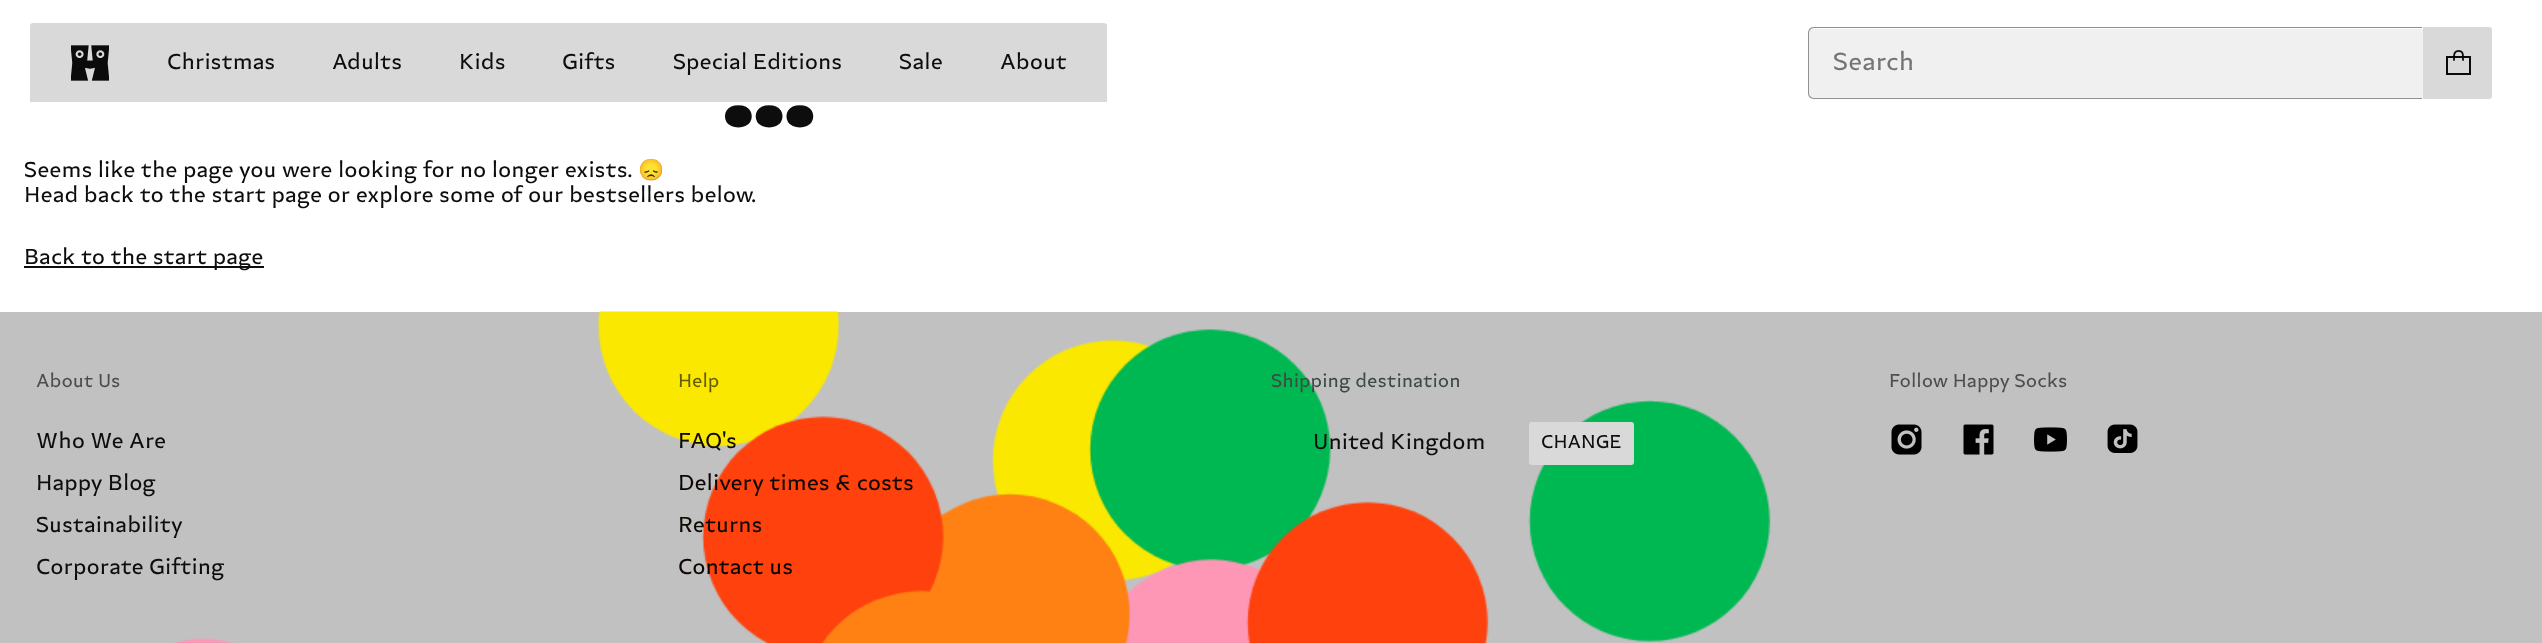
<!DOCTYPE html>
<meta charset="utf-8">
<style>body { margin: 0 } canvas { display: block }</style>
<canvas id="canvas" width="2542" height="643"></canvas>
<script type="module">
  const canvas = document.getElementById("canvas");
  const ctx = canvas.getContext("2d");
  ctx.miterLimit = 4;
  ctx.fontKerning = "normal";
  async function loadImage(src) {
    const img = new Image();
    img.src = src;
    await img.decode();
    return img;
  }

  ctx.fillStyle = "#ffffff";
  ctx.fillRect(0, 0, 2542, 643);
  ctx.fillStyle = "#d9d9d9";
  ctx.beginPath();
  ctx.roundRect(30, 23, 1077, 79, [3, 3, 0, 0]);
  ctx.fill();
  ctx.drawImage(await loadImage("img1.png"), 71, 45, 38, 36);
  ctx.font = "21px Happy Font";
  ctx.fillStyle = "#0d0d0d";
  ctx.fillText("Christmas", 167, 69);
  ctx.fillText("Adults", 332, 69);
  ctx.fillText("Kids", 459, 69);
  ctx.fillText("Gifts", 562, 69);
  ctx.fillText("Special Editions", 673, 69);
  ctx.fillText("Sale", 899, 69);
  ctx.fillText("About", 1000, 69);
  ctx.fillStyle = "#f0f0f0";
  ctx.beginPath();
  ctx.roundRect(1809, 29, 614, 69, [5, 0, 0, 5]);
  ctx.fill();
  ctx.fillStyle = "#919191";
  ctx.beginPath();
  ctx.moveTo(1814, 27);
  ctx.lineTo(2422, 27);
  ctx.lineTo(2422, 99);
  ctx.lineTo(1814, 99);
  ctx.bezierCurveTo(1810, 99, 1808, 96, 1808, 93);
  ctx.lineTo(1808, 33);
  ctx.bezierCurveTo(1808, 30, 1810, 27, 1814, 27);
  ctx.closePath();
  ctx.moveTo(1814, 28);
  ctx.lineTo(2422, 28);
  ctx.lineTo(2422, 98);
  ctx.lineTo(1814, 98);
  ctx.bezierCurveTo(1811, 98, 1809, 95, 1809, 93);
  ctx.lineTo(1809, 33);
  ctx.bezierCurveTo(1809, 31, 1811, 28, 1814, 28);
  ctx.closePath();
  ctx.fill("evenodd");
  ctx.font = "24px Happy Font";
  ctx.fillStyle = "#757575";
  ctx.fillText("Search", 1833, 70);
  ctx.fillStyle = "#d9d9d9";
  ctx.beginPath();
  ctx.roundRect(2423, 27, 69, 72, [0, 3, 3, 0]);
  ctx.fill();
  ctx.drawImage(await loadImage("img2.png"), 2446, 50, 25, 25);
  ctx.font = "900 96px Happy Font";
  ctx.fillStyle = "#0d0d0d";
  ctx.fillText("...", 723, 126);
  ctx.font = "21px Happy Font";
  ctx.fillText("Seems like the page you were looking for no longer exists.", 24, 177);
  ctx.font = "21px Noto Color Emoji";
  ctx.fillText("😞", 638, 177);
  ctx.font = "21px Happy Font";
  ctx.fillText("Head back to the start page or explore some of our bestsellers below.", 24, 202);
  ctx.fillRect(24, 266, 240, 2);
  ctx.fillText("Back to the start page", 24, 264);
  ctx.fillStyle = "#c1c1c1";
  ctx.fillRect(0, 312, 2542, 331);
  ctx.drawImage(await loadImage("img3.png"), 171, 311, 1600, 332);
  ctx.font = "18px Happy Font";
  ctx.fillStyle = "#4d4d4d";
  ctx.fillText("About Us", 36, 387);
  ctx.font = "21px Happy Font";
  ctx.fillStyle = "#0d0d0d";
  ctx.fillText("Who We Are", 36, 448);
  ctx.fillText("Happy Blog", 36, 490);
  ctx.fillText("Sustainability", 36, 532);
  ctx.fillText("Corporate Gifting", 36, 574);
  ctx.font = "18px Happy Font";
  ctx.fillStyle = "#645d00";
  ctx.fillText("Help", 678, 387);
  ctx.font = "21px Happy Font";
  ctx.fillStyle = "#0c0b03";
  ctx.fillText("FAQ's", 678, 448);
  ctx.fillStyle = "#0c0402";
  ctx.fillText("Delivery times & costs", 678, 490);
  ctx.fillStyle = "#0c0b03";
  ctx.fillText("Returns", 678, 532);
  ctx.fillStyle = "#0c0402";
  ctx.fillText("Contact us", 678, 574);
  ctx.font = "18px Happy Font";
  ctx.fillStyle = "#3c4c43";
  ctx.fillText("Shipping destination", 1271, 387);
  ctx.font = "21px Happy Font";
  ctx.fillStyle = "#0d0d0d";
  ctx.fillText("United Kingdom", 1313, 449);
  ctx.fillStyle = "#d9d9d9";
  ctx.beginPath();
  ctx.roundRect(1529, 422, 105, 43, 3);
  ctx.fill();
  ctx.font = "18px Happy Font";
  ctx.fillStyle = "#0d0d0d";
  ctx.fillText("CHANGE", 1541, 448);
  ctx.fillStyle = "#4d4d4d";
  ctx.fillText("Follow Happy Socks", 1889, 387);
  ctx.drawImage(await loadImage("img4.png"), 1891, 424, 31, 31);
  ctx.drawImage(await loadImage("img5.png"), 1963, 424, 31, 31);
  ctx.drawImage(await loadImage("img6.png"), 2034, 427, 33, 25);
  ctx.drawImage(await loadImage("img7.png"), 2107, 424, 31, 29);
</script>
